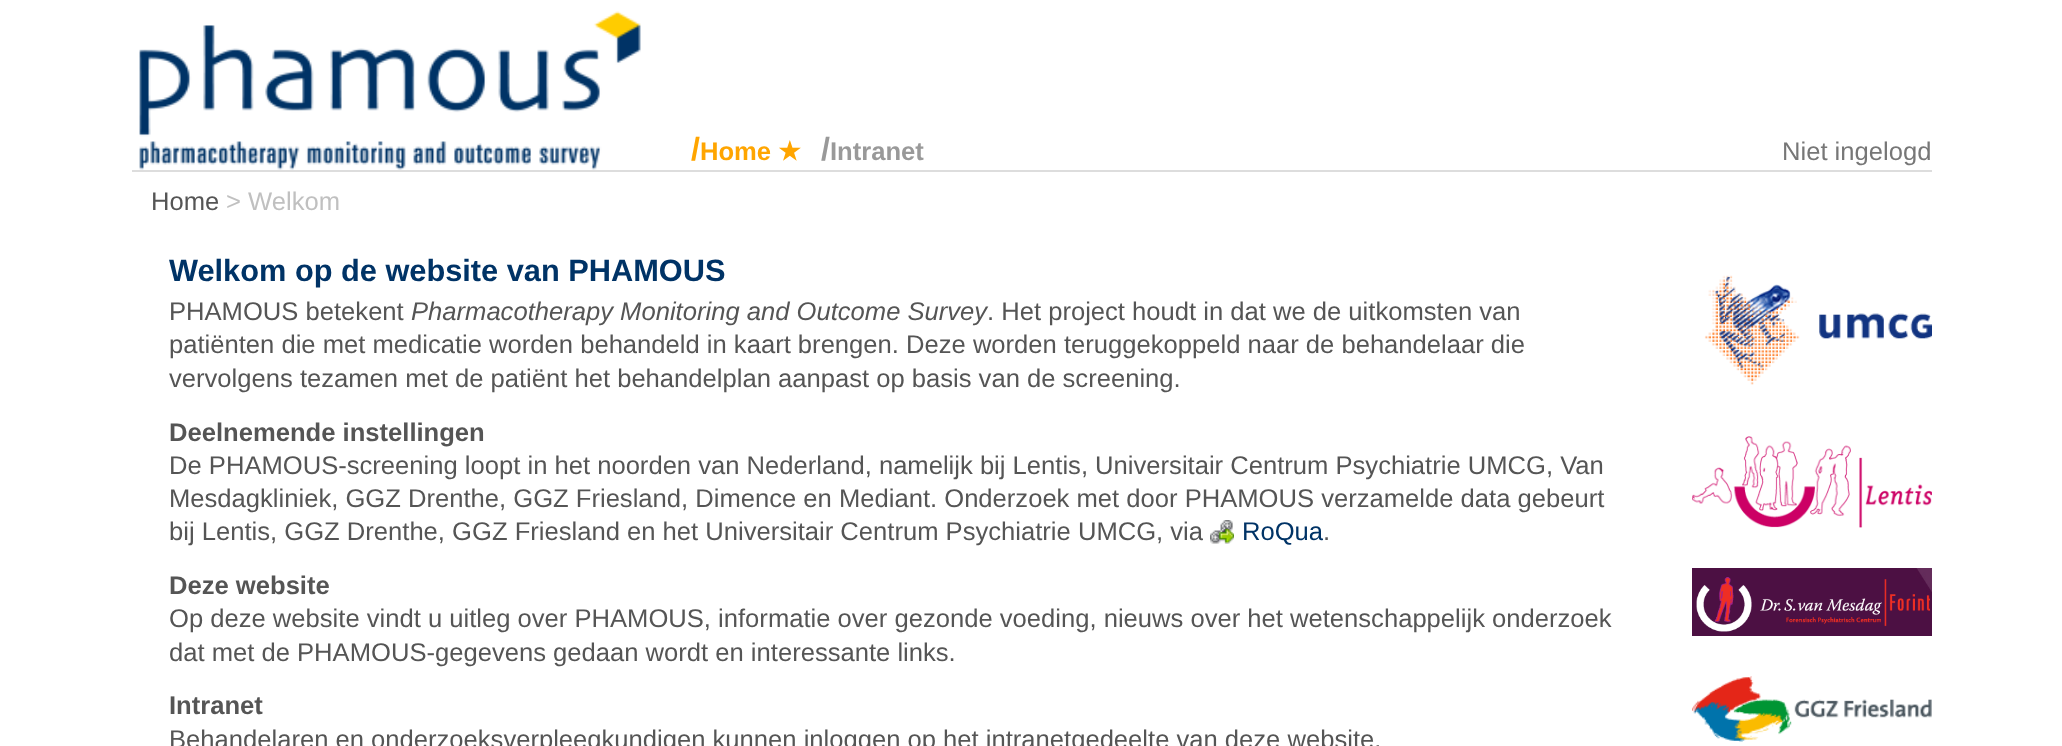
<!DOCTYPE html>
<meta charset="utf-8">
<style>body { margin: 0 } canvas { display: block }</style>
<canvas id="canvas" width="2062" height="746"></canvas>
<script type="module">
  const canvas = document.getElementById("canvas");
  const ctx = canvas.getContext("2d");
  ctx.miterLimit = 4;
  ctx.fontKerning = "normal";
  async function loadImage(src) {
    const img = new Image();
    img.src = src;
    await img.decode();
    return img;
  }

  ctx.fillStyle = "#ffffff";
  ctx.fillRect(0, 0, 2062, 746);
  ctx.fillStyle = "#dddddd";
  ctx.fillRect(132, 170, 1800, 2);
  ctx.font = "bold 32px Liberation Sans";
  ctx.fillStyle = "#ffa500";
  ctx.fillText("/", 691, 160);
  ctx.font = "bold 25.6px Liberation Sans";
  ctx.fillText("Home", 700, 160);
  ctx.font = "bold 25.6px DejaVu Sans";
  ctx.fillText("★", 778, 160);
  ctx.font = "bold 32px Liberation Sans";
  ctx.fillStyle = "#999999";
  ctx.fillText("/", 821, 160);
  ctx.font = "bold 25.6px Liberation Sans";
  ctx.fillText("Intranet", 830, 160);
  ctx.drawImage(await loadImage("img1.png"), 139, 11, 502, 159);
  ctx.font = "25.6px Liberation Sans";
  ctx.fillStyle = "#777777";
  ctx.fillText("Niet ingelogd", 1782, 160);
  ctx.fillStyle = "#555555";
  ctx.fillText("Home", 151, 210);
  ctx.fillStyle = "#c0c0c0";
  ctx.fillText("> Welkom", 226, 210);
  ctx.font = "bold 30.75px Liberation Sans";
  ctx.fillStyle = "#003366";
  ctx.fillText("Welkom op de website van PHAMOUS", 169, 281);
  ctx.font = "25.6px Liberation Sans";
  ctx.fillStyle = "#555555";
  ctx.fillText("PHAMOUS betekent", 169, 320);
  ctx.font = "italic 25.6px Liberation Sans";
  ctx.fillText("Pharmacotherapy Monitoring and Outcome Survey", 411, 320);
  ctx.font = "25.6px Liberation Sans";
  ctx.fillText(". Het project houdt in dat we de uitkomsten van", 987, 320);
  ctx.fillText("patiënten die met medicatie worden behandeld in kaart brengen. Deze worden teruggekoppeld naar de behandelaar die", 169, 353);
  ctx.fillText("vervolgens tezamen met de patiënt het behandelplan aanpast op basis van de screening.", 169, 387);
  ctx.font = "bold 25.6px Liberation Sans";
  ctx.fillText("Deelnemende instellingen", 169, 441);
  ctx.font = "25.6px Liberation Sans";
  ctx.fillText("De PHAMOUS-screening loopt in het noorden van Nederland, namelijk bij Lentis, Universitair Centrum Psychiatrie UMCG, Van", 169, 474);
  ctx.fillText("Mesdagkliniek, GGZ Drenthe, GGZ Friesland, Dimence en Mediant. Onderzoek met door PHAMOUS verzamelde data gebeurt", 169, 507);
  ctx.fillText("bij Lentis, GGZ Drenthe, GGZ Friesland en het Universitair Centrum Psychiatrie UMCG, via", 169, 540);
  ctx.drawImage(await loadImage("img2.png"), 1210, 520, 24, 24);
  ctx.fillStyle = "#003366";
  ctx.fillText("RoQua", 1242, 540);
  ctx.fillStyle = "#555555";
  ctx.fillText(".", 1323, 540);
  ctx.font = "bold 25.6px Liberation Sans";
  ctx.fillText("Deze website", 169, 594);
  ctx.font = "25.6px Liberation Sans";
  ctx.fillText("Op deze website vindt u uitleg over PHAMOUS, informatie over gezonde voeding, nieuws over het wetenschappelijk onderzoek", 169, 627);
  ctx.fillText("dat met de PHAMOUS-gegevens gedaan wordt en interessante links.", 169, 661);
  ctx.font = "bold 25.6px Liberation Sans";
  ctx.fillText("Intranet", 169, 714);
  ctx.font = "25.6px Liberation Sans";
  ctx.fillText("Behandelaren en onderzoeksverpleegkundigen kunnen inloggen op het intranetgedeelte van deze website.", 169, 748);
  ctx.drawImage(await loadImage("img3.png"), 1692, 275, 240, 467);
</script>
